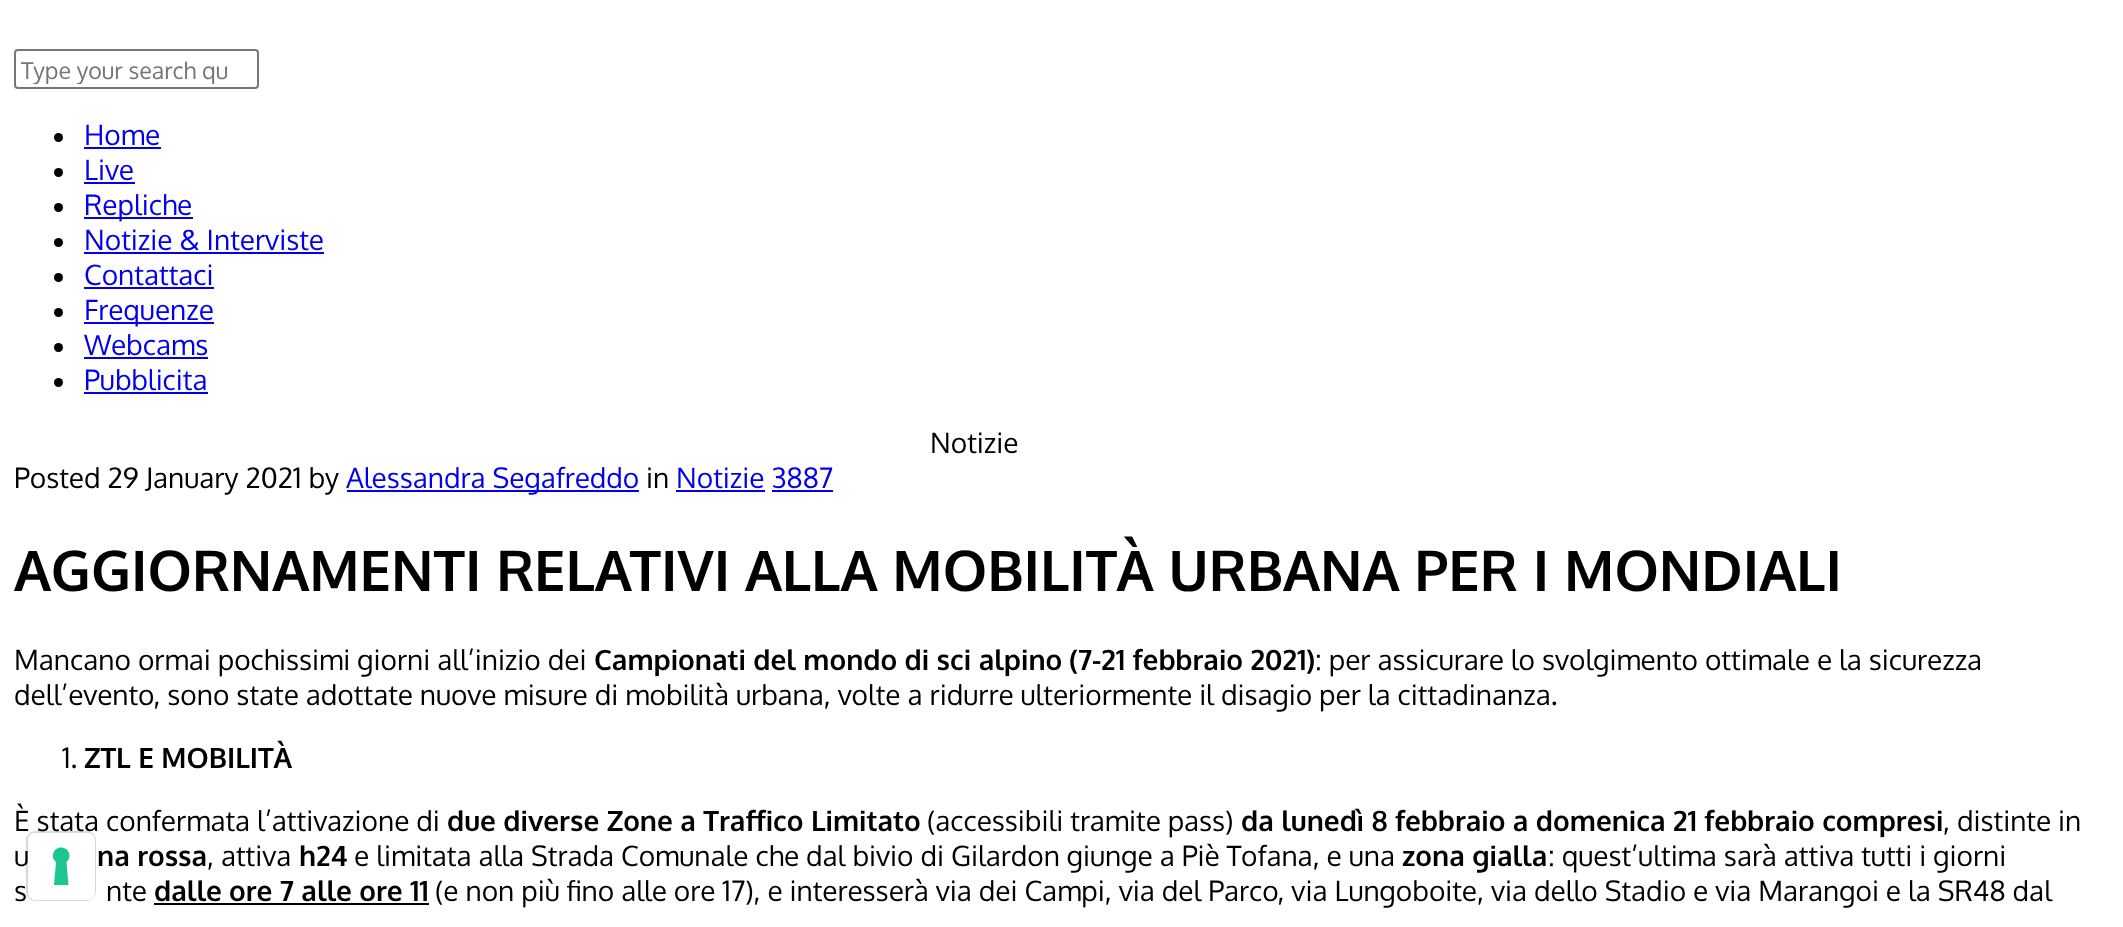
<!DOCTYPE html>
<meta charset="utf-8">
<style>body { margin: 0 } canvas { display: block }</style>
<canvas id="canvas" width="2123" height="927"></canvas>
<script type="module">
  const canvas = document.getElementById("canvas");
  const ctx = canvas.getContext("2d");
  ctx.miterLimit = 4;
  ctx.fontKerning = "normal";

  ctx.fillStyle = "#ffffff";
  ctx.fillRect(0, 0, 2123, 927);
  ctx.beginPath();
  ctx.roundRect(15, 50, 243, 38, 3);
  ctx.strokeStyle = "#767676";
  ctx.lineWidth = 2;
  ctx.stroke();
  ctx.save();
  ctx.beginPath();
  ctx.rect(21, 54, 208, 30);
  ctx.clip();
  ctx.font = "23.25px Oxygen";
  ctx.fillStyle = "#757575";
  ctx.fillText("Type your search qu", 21, 79);
  ctx.restore();
  ctx.fillStyle = "#000000";
  ctx.beginPath();
  ctx.arc(58.5, 137.5, 4.5, 0, Math.PI * 2);
  ctx.fill();
  ctx.font = "28px Oxygen";
  ctx.fillStyle = "#0000ee";
  ctx.fillText("Home", 84, 145);
  ctx.fillRect(84, 147, 77, 2);
  ctx.fillStyle = "#000000";
  ctx.beginPath();
  ctx.arc(58.5, 172.5, 4.5, 0, Math.PI * 2);
  ctx.fill();
  ctx.fillStyle = "#0000ee";
  ctx.fillText("Live", 84, 180);
  ctx.fillRect(84, 182, 51, 2);
  ctx.fillStyle = "#000000";
  ctx.beginPath();
  ctx.arc(58.5, 207.5, 4.5, 0, Math.PI * 2);
  ctx.fill();
  ctx.fillStyle = "#0000ee";
  ctx.fillRect(84, 217, 109, 2);
  ctx.fillText("Repliche", 84, 215);
  ctx.fillStyle = "#000000";
  ctx.beginPath();
  ctx.arc(58.5, 242.5, 4.5, 0, Math.PI * 2);
  ctx.fill();
  ctx.fillStyle = "#0000ee";
  ctx.fillText("Notizie & Interviste", 84, 250);
  ctx.fillRect(84, 252, 240, 2);
  ctx.fillStyle = "#000000";
  ctx.beginPath();
  ctx.arc(58.5, 277.5, 4.5, 0, Math.PI * 2);
  ctx.fill();
  ctx.fillStyle = "#0000ee";
  ctx.fillText("Contattaci", 84, 285);
  ctx.fillRect(84, 287, 130, 2);
  ctx.fillStyle = "#000000";
  ctx.beginPath();
  ctx.arc(58.5, 312.5, 4.5, 0, Math.PI * 2);
  ctx.fill();
  ctx.fillStyle = "#0000ee";
  ctx.fillRect(84, 322, 130, 2);
  ctx.fillText("Frequenze", 84, 320);
  ctx.fillStyle = "#000000";
  ctx.beginPath();
  ctx.arc(58.5, 347.5, 4.5, 0, Math.PI * 2);
  ctx.fill();
  ctx.fillStyle = "#0000ee";
  ctx.fillText("Webcams", 84, 355);
  ctx.fillRect(84, 357, 124, 2);
  ctx.fillStyle = "#000000";
  ctx.beginPath();
  ctx.arc(58.5, 382.5, 4.5, 0, Math.PI * 2);
  ctx.fill();
  ctx.fillStyle = "#0000ee";
  ctx.fillText("Pubblicita", 84, 390);
  ctx.fillRect(84, 392, 124, 2);
  ctx.fillStyle = "#000000";
  ctx.fillText("Notizie", 930, 453);
  ctx.fillText("Posted 29 January 2021 by", 14, 488);
  ctx.fillStyle = "#0000ee";
  ctx.fillRect(347, 490, 292, 2);
  ctx.fillText("Alessandra Segafreddo", 346, 488);
  ctx.fillStyle = "#000000";
  ctx.fillText("in", 646, 488);
  ctx.fillStyle = "#0000ee";
  ctx.fillText("Notizie 3887", 676, 488);
  ctx.fillRect(676, 490, 89, 2);
  ctx.fillRect(772, 490, 61, 2);
  ctx.font = "bold 56px Oxygen";
  ctx.fillStyle = "#000000";
  ctx.fillText("AGGIORNAMENTI RELATIVI ALLA MOBILITÀ URBANA PER I MONDIALI", 14, 591);
  ctx.font = "28px Oxygen";
  ctx.fillText("Mancano ormai pochissimi giorni all’inizio dei", 14, 670);
  ctx.font = "bold 28px Oxygen";
  ctx.fillText("Campionati del mondo di sci alpino", 594, 670);
  ctx.fillText("(7-21 febbraio 2021)", 1069, 670);
  ctx.font = "28px Oxygen";
  ctx.fillText(": per assicurare lo svolgimento ottimale e la sicurezza", 1315, 670);
  ctx.fillText("dell’evento, sono state adottate nuove misure di mobilità urbana, volte a ridurre ulteriormente il disagio per la cittadinanza.", 14, 705);
  ctx.fillText("1.", 62, 768);
  ctx.font = "bold 28px Oxygen";
  ctx.fillText("ZTL E MOBILITÀ", 84, 768);
  ctx.font = "28px Oxygen";
  ctx.fillText("È stata confermata l’attivazione di", 14, 831);
  ctx.font = "bold 28px Oxygen";
  ctx.fillText("due diverse Zone a Traffico Limitato", 447, 831);
  ctx.font = "28px Oxygen";
  ctx.fillText("(accessibili tramite pass)", 927, 831);
  ctx.font = "bold 28px Oxygen";
  ctx.fillText("da lunedì 8 febbraio a domenica 21 febbraio compresi", 1241, 831);
  ctx.font = "28px Oxygen";
  ctx.fillText(", distinte in", 1943, 831);
  ctx.fillText("u", 14, 866);
  ctx.font = "bold 28px Oxygen";
  ctx.fillText("na rossa", 97, 866);
  ctx.font = "28px Oxygen";
  ctx.fillText(", attiva", 207, 866);
  ctx.font = "bold 28px Oxygen";
  ctx.fillText("h24", 299, 866);
  ctx.font = "28px Oxygen";
  ctx.fillText("e limitata alla Strada Comunale che dal bivio di Gilardon giunge a Piè Tofana, e una", 354, 866);
  ctx.font = "bold 28px Oxygen";
  ctx.fillText("zona gialla", 1402, 866);
  ctx.font = "28px Oxygen";
  ctx.fillText(": quest’ultima sarà attiva tutti i giorni", 1548, 866);
  ctx.fillText("s", 14, 901);
  ctx.fillText("nte", 106, 901);
  ctx.font = "bold 28px Oxygen";
  ctx.fillText("dalle ore 7 alle ore 11", 154, 901);
  ctx.fillRect(154, 903, 275, 2);
  ctx.font = "28px Oxygen";
  ctx.fillText("(e non più fino alle ore 17), e interesserà via dei Campi, via del Parco, via Lungoboite, via dello Stadio e via Marangoi e la SR48 dal", 435, 901);
  ctx.beginPath();
  ctx.roundRect(27, 832, 68, 68, 8);
  ctx.strokeStyle = "rgba(0, 0, 0, 0.15)";
  ctx.stroke();
  ctx.fillStyle = "#ffffff";
  ctx.beginPath();
  ctx.roundRect(28, 833, 67, 67, 7);
  ctx.fill();
  ctx.fillStyle = "#1cc691";
  ctx.beginPath();
  ctx.moveTo(61, 847.5);
  ctx.bezierCurveTo(69, 847.5, 72.5, 857, 66.5, 862);
  ctx.lineTo(68.5, 885);
  ctx.lineTo(54, 885);
  ctx.lineTo(56, 862);
  ctx.bezierCurveTo(50, 857, 53.5, 847.5, 61, 847.5);
  ctx.closePath();
  ctx.fill("evenodd");
</script>
